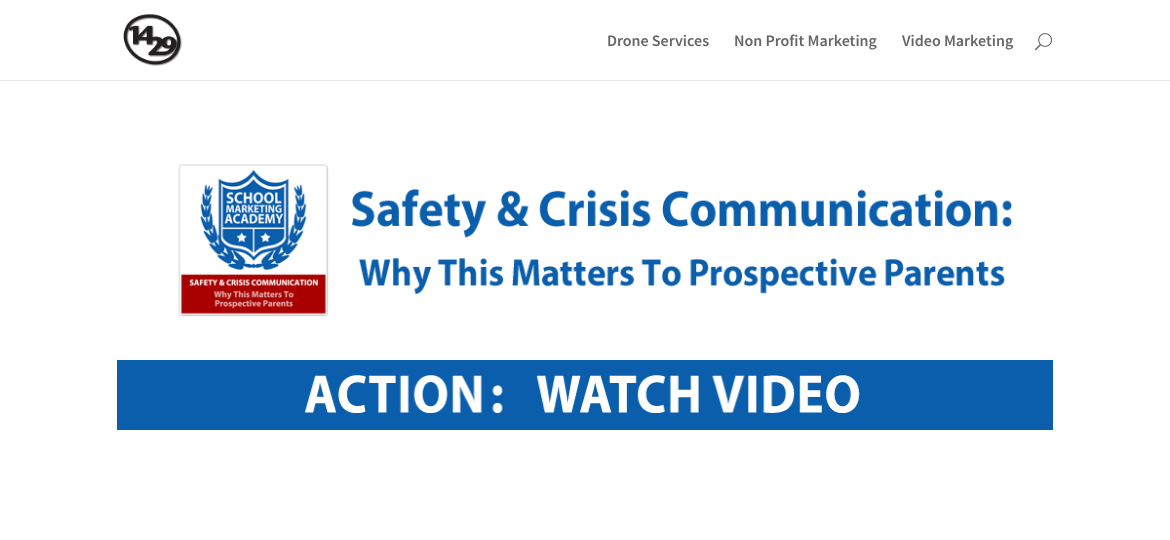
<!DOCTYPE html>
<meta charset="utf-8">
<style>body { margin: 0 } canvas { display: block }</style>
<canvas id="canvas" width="1170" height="540"></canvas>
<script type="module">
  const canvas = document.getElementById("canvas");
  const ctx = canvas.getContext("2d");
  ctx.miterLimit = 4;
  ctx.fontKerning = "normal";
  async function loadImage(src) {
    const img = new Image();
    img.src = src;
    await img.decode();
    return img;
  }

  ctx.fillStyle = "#ffffff";
  ctx.fillRect(0, 0, 1170, 540);
  ctx.fillStyle = "#e6e6e6";
  ctx.fillRect(0, 80, 1170, 1);
  ctx.drawImage(await loadImage("img1.png"), 123, 13, 59, 53);
  ctx.font = "600 16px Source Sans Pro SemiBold";
  ctx.fillStyle = "#666666";
  ctx.fillText("Drone Services", 607, 46);
  ctx.fillText("Non Profit Marketing", 734, 46);
  ctx.fillText("Video Marketing", 902, 46);
  ctx.drawImage(await loadImage("img2.png"), 1035, 33, 17, 18);
  ctx.drawImage(await loadImage("img3.png"), 178, 164, 835, 153);
  ctx.drawImage(await loadImage("img4.png"), 117, 360, 936, 70);
</script>
